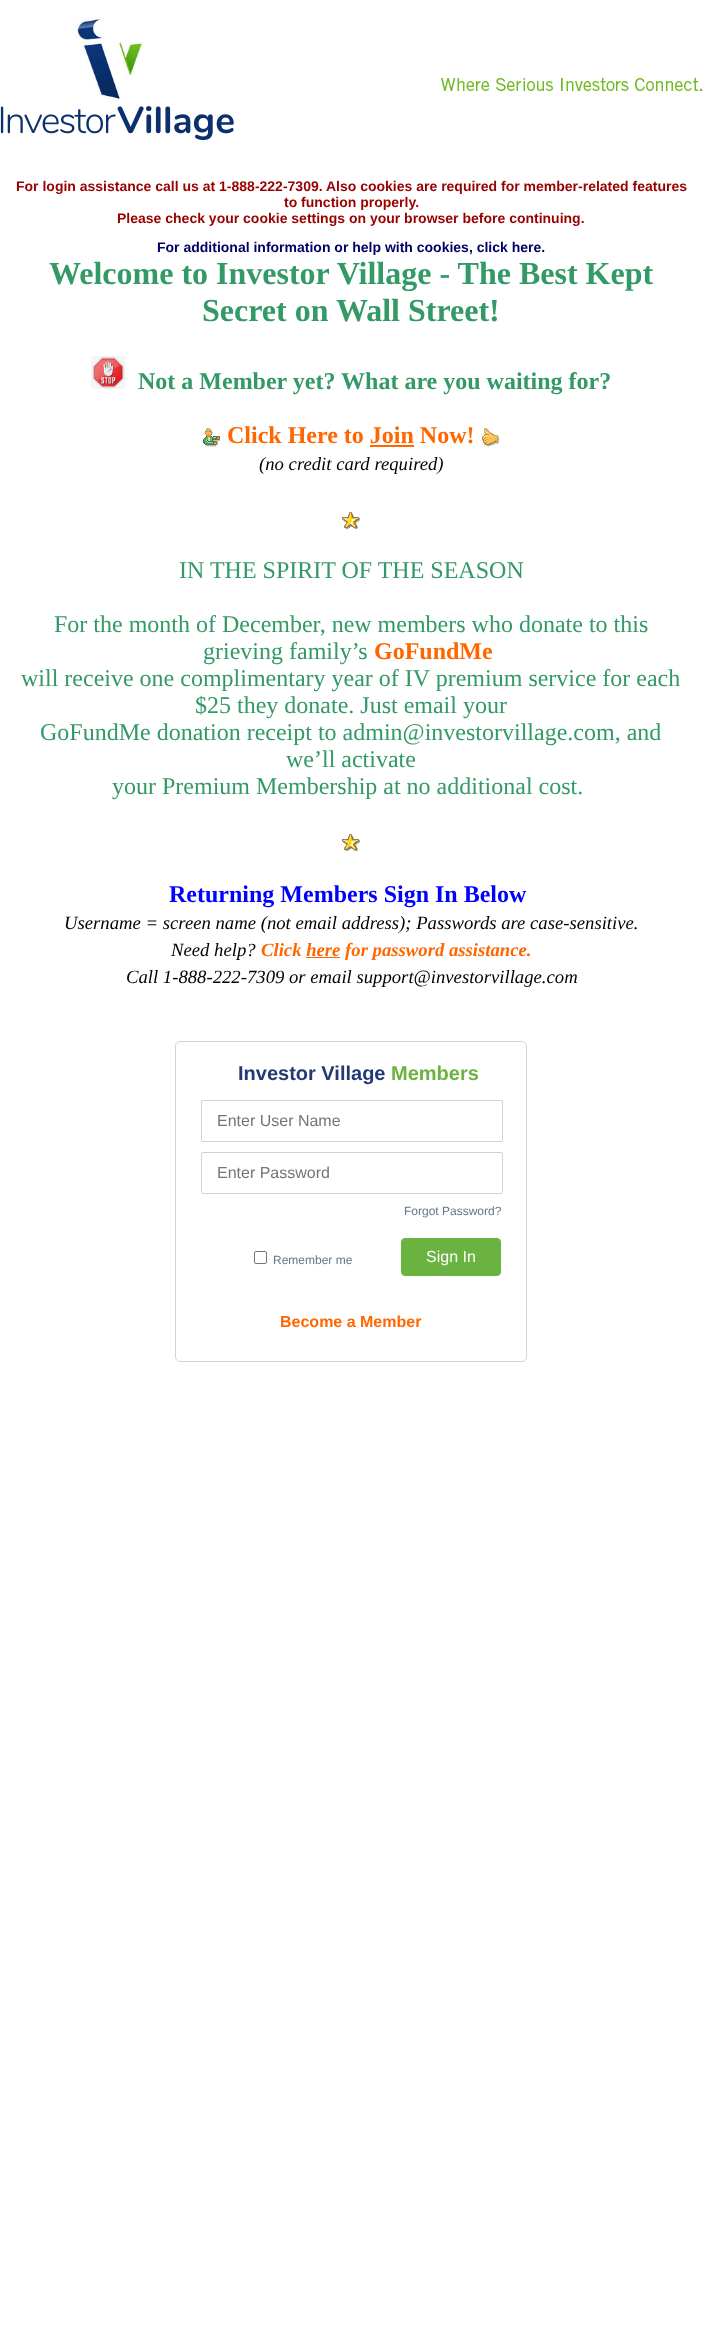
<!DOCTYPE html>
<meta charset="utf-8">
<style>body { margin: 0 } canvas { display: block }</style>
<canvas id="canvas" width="702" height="2335"></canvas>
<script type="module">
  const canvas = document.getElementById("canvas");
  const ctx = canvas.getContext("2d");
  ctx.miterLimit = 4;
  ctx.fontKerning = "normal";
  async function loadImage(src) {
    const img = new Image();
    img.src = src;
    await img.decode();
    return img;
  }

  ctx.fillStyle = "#ffffff";
  ctx.fillRect(0, 0, 702, 2335);
  ctx.drawImage(await loadImage("img1.png"), 0, 18, 234, 122);
  ctx.drawImage(await loadImage("img2.png"), 441, 77, 261, 14);
  ctx.font = "bold 14px Liberation Sans";
  ctx.fillStyle = "#990000";
  ctx.fillText("For login assistance call us at 1-888-222-7309. Also cookies are required for member-related features", 16, 191);
  ctx.fillText("to function properly.", 284, 207);
  ctx.fillText("Please check your cookie settings on your browser before continuing.", 117, 223);
  ctx.fillStyle = "#000064";
  ctx.fillText("For additional information or help with cookies, click here.", 157, 252);
  ctx.font = "bold 32px Liberation Serif";
  ctx.fillStyle = "#339966";
  ctx.fillText("Welcome to Investor Village - The Best Kept", 49, 284);
  ctx.fillText("Secret on Wall Street!", 202, 321);
  ctx.drawImage(await loadImage("img3.png"), 91, 356, 34, 33);
  ctx.font = "bold 24px Liberation Serif";
  ctx.fillText("Not a Member yet? What are you waiting for?", 138, 389);
  ctx.drawImage(await loadImage("img4.png"), 203, 428, 17, 19);
  ctx.fillStyle = "#ff6600";
  ctx.fillText("Click Here to Join Now!", 227, 443);
  ctx.fillRect(370, 445, 44, 2);
  ctx.drawImage(await loadImage("img5.png"), 482, 428, 17, 19);
  ctx.font = "italic 18.7px Liberation Serif";
  ctx.fillStyle = "#000000";
  ctx.fillText("(no credit card required)", 259, 470);
  ctx.drawImage(await loadImage("img6.png"), 342, 512, 18, 17);
  ctx.font = "24px Liberation Serif";
  ctx.fillStyle = "#339966";
  ctx.fillText("IN THE SPIRIT OF THE SEASON", 179, 578);
  ctx.fillText("For the month of December, new members who donate to this", 54, 632);
  ctx.fillText("grieving family’s", 203, 659);
  ctx.font = "bold 24px Liberation Serif";
  ctx.fillStyle = "#ff6600";
  ctx.fillText("GoFundMe", 374, 659);
  ctx.font = "24px Liberation Serif";
  ctx.fillStyle = "#339966";
  ctx.fillText("will receive one complimentary year of IV premium service for each", 21, 686);
  ctx.fillText("$25 they donate. Just email your", 195, 713);
  ctx.fillText("GoFundMe donation receipt to admin@investorvillage.com, and", 40, 740);
  ctx.fillText("we’ll activate", 286, 767);
  ctx.fillText("your Premium Membership at no additional cost.", 112, 794);
  ctx.drawImage(await loadImage("img6.png"), 342, 834, 18, 17);
  ctx.font = "bold 24px Liberation Serif";
  ctx.fillStyle = "#0000ff";
  ctx.fillText("Returning Members Sign In Below", 169, 902);
  ctx.font = "italic 18.7px Liberation Serif";
  ctx.fillStyle = "#000000";
  ctx.fillText("Username = screen name (not email address); Passwords are case-sensitive.", 64, 929);
  ctx.fillText("Need help?", 171, 956);
  ctx.font = "italic bold 18.7px Liberation Serif";
  ctx.fillStyle = "#ff6600";
  ctx.fillText("Click here for password assistance.", 261, 956);
  ctx.fillRect(306, 957, 34, 1);
  ctx.font = "italic 18.7px Liberation Serif";
  ctx.fillStyle = "#000000";
  ctx.fillText("Call 1-888-222-7309 or email support@investorvillage.com", 126, 983);
  ctx.beginPath();
  ctx.roundRect(175.5, 1041.5, 351, 320, 4.5);
  ctx.strokeStyle = "#ced4da";
  ctx.stroke();
  ctx.font = "bold 20px Liberation Sans";
  ctx.fillStyle = "#243872";
  ctx.fillText("Investor Village", 238, 1080);
  ctx.fillStyle = "#6bb341";
  ctx.fillText("Members", 391, 1080);
  ctx.beginPath();
  ctx.roundRect(201.5, 1100.5, 301, 41, 1.5);
  ctx.stroke();
  ctx.font = "16px Liberation Sans";
  ctx.fillStyle = "#757575";
  ctx.fillText("Enter User Name", 217, 1126);
  ctx.beginPath();
  ctx.roundRect(201.5, 1152.5, 301, 41, 1.5);
  ctx.stroke();
  ctx.fillText("Enter Password", 217, 1178);
  ctx.font = "12px Liberation Sans";
  ctx.fillStyle = "#64758d";
  ctx.fillText("Forgot Password?", 404, 1215);
  ctx.beginPath();
  ctx.roundRect(254.5, 1251.5, 12, 12, 1.5);
  ctx.strokeStyle = "#767676";
  ctx.stroke();
  ctx.fillText("Remember me", 273, 1264);
  ctx.fillStyle = "#6bb341";
  ctx.beginPath();
  ctx.roundRect(401.5, 1238.5, 99, 37, 3.5);
  ctx.fill();
  ctx.strokeStyle = "#6bb341";
  ctx.stroke();
  ctx.font = "16px Liberation Sans";
  ctx.fillStyle = "#ffffff";
  ctx.fillText("Sign In", 426, 1262);
  ctx.font = "bold 16px Liberation Sans";
  ctx.fillStyle = "#ff6600";
  ctx.fillText("Become a Member", 280, 1327);
</script>
